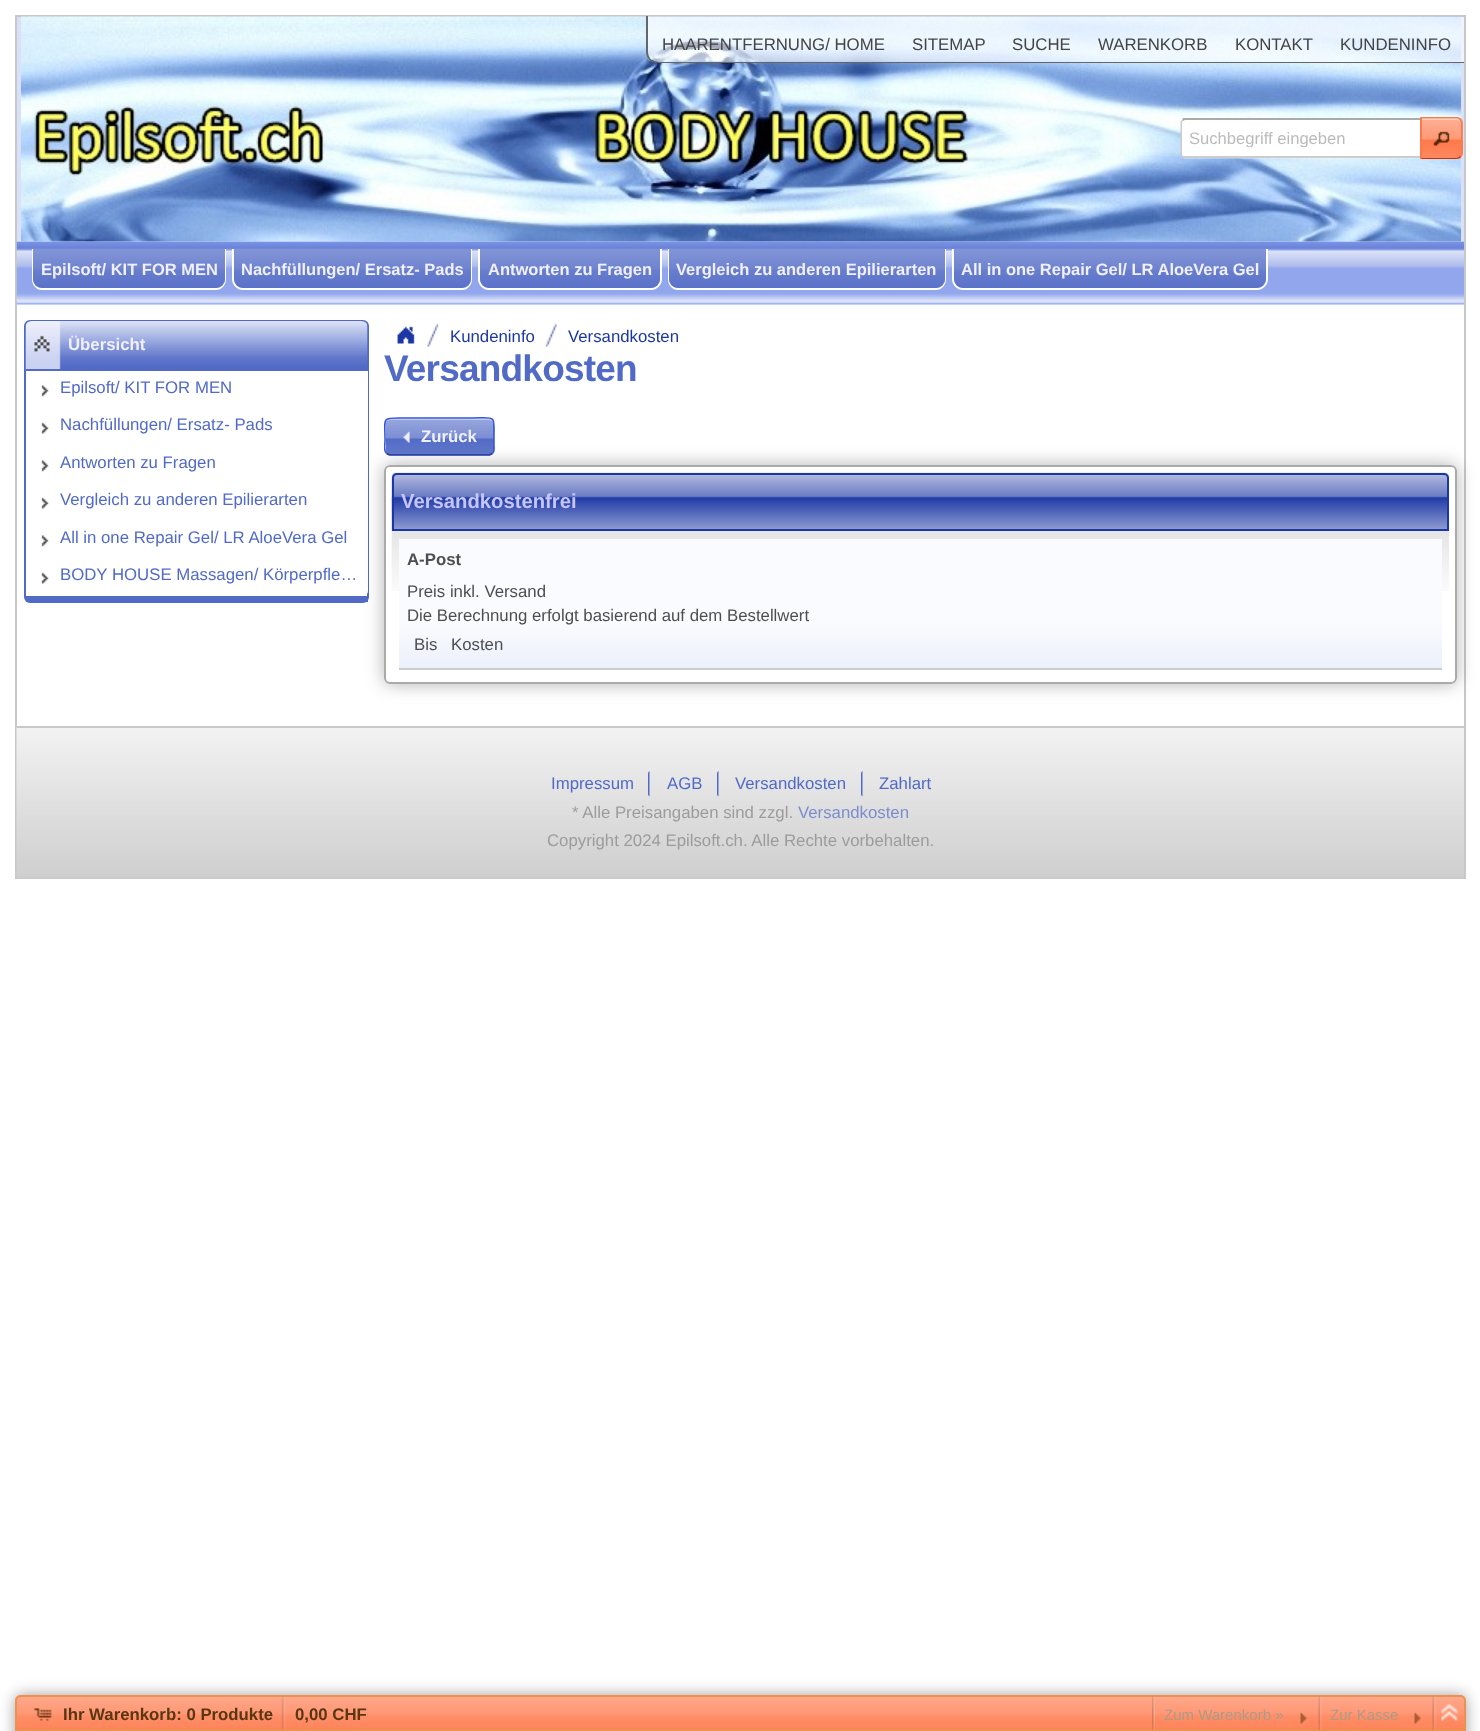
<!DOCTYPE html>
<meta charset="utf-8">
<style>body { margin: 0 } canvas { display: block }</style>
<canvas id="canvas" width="1480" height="1731"></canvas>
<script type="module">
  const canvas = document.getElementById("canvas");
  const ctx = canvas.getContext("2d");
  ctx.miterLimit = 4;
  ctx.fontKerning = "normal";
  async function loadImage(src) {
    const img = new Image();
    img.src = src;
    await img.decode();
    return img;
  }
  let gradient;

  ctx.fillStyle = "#ffffff";
  ctx.fillRect(0, 0, 1480, 1731);
  ctx.strokeStyle = "#c8c8c8";
  ctx.lineWidth = 2;
  ctx.strokeRect(16, 16, 1449, 862);
  ctx.fillStyle = "#d9e0fa";
  ctx.fillRect(17, 17, 1447, 288);
  ctx.drawImage(await loadImage("img1.png"), 21, 16, 1440, 226);
  ctx.fillStyle = "#666666";
  ctx.beginPath();
  ctx.moveTo(646, 16);
  ctx.lineTo(1464, 16);
  ctx.lineTo(1464, 63);
  ctx.lineTo(657, 63);
  ctx.bezierCurveTo(651, 63, 646, 58, 646, 52);
  ctx.closePath();
  ctx.moveTo(648, 16);
  ctx.lineTo(1464, 16);
  ctx.lineTo(1464, 62);
  ctx.lineTo(657, 62);
  ctx.bezierCurveTo(652, 62, 648, 57, 648, 52);
  ctx.closePath();
  ctx.fill("evenodd");
  ctx.fillStyle = "rgba(255, 255, 255, 0.6)";
  ctx.beginPath();
  ctx.roundRect(648, 17, 251, 45, [0, 0, 0, 11]);
  ctx.fill();
  ctx.drawImage(await loadImage("img2.png"), 652, 43, 246, 18);
  ctx.font = "16.8px Liberation Sans";
  ctx.fillStyle = "#444444";
  ctx.fillText("HAARENTFERNUNG/ HOME", 662, 50);
  ctx.fillStyle = "rgba(255, 255, 255, 0.6)";
  ctx.fillRect(899, 17, 100, 45);
  ctx.fillStyle = "rgba(255, 255, 255, 0.11)";
  ctx.fillRect(899, 56, 100, 5);
  ctx.fillStyle = "#444444";
  ctx.fillText("SITEMAP", 912, 50);
  ctx.fillStyle = "rgba(255, 255, 255, 0.6)";
  ctx.fillRect(999, 17, 86, 45);
  ctx.fillStyle = "rgba(255, 255, 255, 0.11)";
  ctx.fillRect(999, 58, 44, 3);
  ctx.fillStyle = "#444444";
  ctx.fillText("SUCHE", 1012, 50);
  ctx.fillStyle = "rgba(255, 255, 255, 0.6)";
  ctx.fillRect(1085, 17, 136, 45);
  ctx.fillStyle = "#444444";
  ctx.fillText("WARENKORB", 1098, 50);
  ctx.fillStyle = "rgba(255, 255, 255, 0.6)";
  ctx.fillRect(1221, 17, 105, 45);
  ctx.fillStyle = "#444444";
  ctx.fillText("KONTAKT", 1235, 50);
  ctx.fillStyle = "rgba(255, 255, 255, 0.6)";
  ctx.fillRect(1326, 17, 138, 45);
  ctx.fillStyle = "#444444";
  ctx.fillText("KUNDENINFO", 1340, 50);
  ctx.fillStyle = "rgba(255, 255, 255, 0.3)";
  ctx.beginPath();
  ctx.moveTo(1181, 155);
  ctx.bezierCurveTo(1182, 157, 1184, 159, 1186, 159);
  ctx.lineTo(1421, 159);
  ctx.lineTo(1421, 120);
  ctx.lineTo(1420, 120);
  ctx.lineTo(1420, 158);
  ctx.lineTo(1185, 158);
  ctx.bezierCurveTo(1183, 158, 1182, 157, 1181, 155);
  ctx.closePath();
  ctx.fill();
  ctx.fillStyle = "#ffffff";
  ctx.beginPath();
  ctx.roundRect(1181, 119, 240, 39, [5, 0, 0, 5]);
  ctx.fill();
  ctx.fillStyle = "#aaaaaa";
  ctx.beginPath();
  ctx.moveTo(1185, 120);
  ctx.lineTo(1183, 121);
  ctx.lineTo(1182, 120);
  ctx.lineTo(1183, 118);
  ctx.lineTo(1420, 118);
  ctx.lineTo(1420, 120);
  ctx.closePath();
  ctx.fill();
  ctx.fillStyle = "#cccccc";
  ctx.beginPath();
  ctx.moveTo(1183, 158);
  ctx.lineTo(1182, 156);
  ctx.lineTo(1183, 155);
  ctx.lineTo(1183, 156);
  ctx.lineTo(1420, 156);
  ctx.lineTo(1420, 158);
  ctx.closePath();
  ctx.fill();
  ctx.beginPath();
  ctx.moveTo(1180.5, 121.5);
  ctx.lineTo(1182, 120);
  ctx.lineTo(1183, 121);
  ctx.bezierCurveTo(1182, 121, 1182, 122, 1182, 123);
  ctx.lineTo(1182, 153);
  ctx.bezierCurveTo(1182, 154, 1182, 155, 1183, 155);
  ctx.lineTo(1182, 156);
  ctx.lineTo(1180.5, 154.5);
  ctx.closePath();
  ctx.fill();
  ctx.save();
  ctx.beginPath();
  ctx.rect(1190, 129, 223, 18);
  ctx.clip();
  ctx.font = "16.6px Liberation Sans";
  ctx.fillStyle = "#bbbbbb";
  ctx.fillText("Suchbegriff eingeben", 1189, 144);
  ctx.restore();
  ctx.fillStyle = "#ff784a";
  ctx.beginPath();
  ctx.roundRect(1421, 117, 42, 42, [0, 6, 6, 0]);
  ctx.fill();
  ctx.drawImage(await loadImage("img3.png"), 1420, 117, 43, 42);
  ctx.fillStyle = "#ffd3c4";
  ctx.beginPath();
  ctx.moveTo(1422, 120);
  ctx.lineTo(1456, 120);
  ctx.bezierCurveTo(1459, 120, 1461, 122, 1461, 124);
  ctx.bezierCurveTo(1461, 121, 1459, 119, 1456, 119);
  ctx.lineTo(1422, 119);
  ctx.closePath();
  ctx.fill();
  ctx.fillStyle = "#ff784a";
  ctx.beginPath();
  ctx.moveTo(1422, 118);
  ctx.lineTo(1456, 118);
  ctx.bezierCurveTo(1458, 118, 1459, 119, 1460, 120);
  ctx.lineTo(1461, 119);
  ctx.bezierCurveTo(1460, 118, 1458, 117, 1456, 117);
  ctx.lineTo(1420, 117);
  ctx.closePath();
  ctx.fill();
  ctx.beginPath();
  ctx.moveTo(1460.5, 119);
  ctx.bezierCurveTo(1461.5, 120, 1462, 121.5, 1462, 123);
  ctx.lineTo(1462, 153);
  ctx.bezierCurveTo(1462, 154.5, 1461.5, 156, 1460.5, 157);
  ctx.lineTo(1459.5, 156);
  ctx.bezierCurveTo(1460.5, 155, 1461, 154, 1461, 153);
  ctx.lineTo(1461, 123);
  ctx.bezierCurveTo(1461, 122, 1460.5, 121, 1459.5, 120);
  ctx.closePath();
  ctx.fill();
  ctx.fillStyle = "#c63200";
  ctx.beginPath();
  ctx.moveTo(1420, 159);
  ctx.lineTo(1456, 159);
  ctx.bezierCurveTo(1458, 159, 1460, 158, 1461, 157);
  ctx.lineTo(1460, 156);
  ctx.bezierCurveTo(1459, 157, 1458, 158, 1456, 158);
  ctx.lineTo(1422, 158);
  ctx.closePath();
  ctx.fill();
  ctx.fillStyle = "#ff784a";
  ctx.beginPath();
  ctx.moveTo(1420, 159);
  ctx.lineTo(1422, 158);
  ctx.lineTo(1422, 118);
  ctx.lineTo(1420, 117);
  ctx.closePath();
  ctx.fill();
  ctx.drawImage(await loadImage("img4.png"), 1433, 131, 17, 15);
  ctx.drawImage(await loadImage("img5.png"), 16, 241, 1448, 64);
  ctx.fillStyle = "#ffffff";
  ctx.beginPath();
  ctx.moveTo(32, 249);
  ctx.lineTo(226, 249);
  ctx.lineTo(226, 279);
  ctx.bezierCurveTo(226, 285, 222, 290, 216, 290);
  ctx.lineTo(42, 290);
  ctx.bezierCurveTo(36, 290, 32, 285, 32, 279);
  ctx.closePath();
  ctx.moveTo(33, 249);
  ctx.lineTo(225, 249);
  ctx.lineTo(225, 279);
  ctx.bezierCurveTo(225, 284, 221, 288, 216, 288);
  ctx.lineTo(42, 288);
  ctx.bezierCurveTo(37, 288, 33, 284, 33, 279);
  ctx.closePath();
  ctx.fill("evenodd");
  ctx.fillStyle = "#516ac6";
  ctx.beginPath();
  ctx.roundRect(33, 249, 192, 39, [0, 0, 9, 9]);
  ctx.fill();
  ctx.drawImage(await loadImage("img6.png"), 33, 249, 192, 39);
  ctx.font = "bold 16.5px Liberation Sans";
  ctx.fillStyle = "#f0f0ff";
  ctx.fillText("Epilsoft/ KIT FOR MEN", 41, 275);
  ctx.fillStyle = "#ffffff";
  ctx.beginPath();
  ctx.moveTo(232, 249);
  ctx.lineTo(472, 249);
  ctx.lineTo(472, 279);
  ctx.bezierCurveTo(472, 285, 468, 290, 462, 290);
  ctx.lineTo(243, 290);
  ctx.bezierCurveTo(237, 290, 232, 285, 232, 279);
  ctx.closePath();
  ctx.moveTo(234, 249);
  ctx.lineTo(471, 249);
  ctx.lineTo(471, 279);
  ctx.bezierCurveTo(471, 284, 467, 288, 462, 288);
  ctx.lineTo(243, 288);
  ctx.bezierCurveTo(238, 288, 234, 284, 234, 279);
  ctx.closePath();
  ctx.fill("evenodd");
  ctx.fillStyle = "#516ac6";
  ctx.beginPath();
  ctx.roundRect(234, 249, 237, 39, [0, 0, 9, 9]);
  ctx.fill();
  ctx.drawImage(await loadImage("img7.png"), 234, 249, 237, 39);
  ctx.fillStyle = "#f0f0ff";
  ctx.fillText("Nachfüllungen/ Ersatz- Pads", 241, 275);
  ctx.fillStyle = "#ffffff";
  ctx.beginPath();
  ctx.moveTo(478, 249);
  ctx.lineTo(662, 249);
  ctx.lineTo(662, 279);
  ctx.bezierCurveTo(662, 285, 657, 290, 651, 290);
  ctx.lineTo(489, 290);
  ctx.bezierCurveTo(483, 290, 478, 285, 478, 279);
  ctx.closePath();
  ctx.moveTo(480, 249);
  ctx.lineTo(660, 249);
  ctx.lineTo(660, 279);
  ctx.bezierCurveTo(660, 284, 656, 288, 651, 288);
  ctx.lineTo(489, 288);
  ctx.bezierCurveTo(484, 288, 480, 284, 480, 279);
  ctx.closePath();
  ctx.fill("evenodd");
  ctx.fillStyle = "#516ac6";
  ctx.beginPath();
  ctx.roundRect(480, 249, 180, 39, [0, 0, 9, 9]);
  ctx.fill();
  ctx.drawImage(await loadImage("img8.png"), 480, 249, 180, 39);
  ctx.fillStyle = "#f0f0ff";
  ctx.fillText("Antworten zu Fragen", 488, 275);
  ctx.fillStyle = "#ffffff";
  ctx.beginPath();
  ctx.moveTo(668, 249);
  ctx.lineTo(946, 249);
  ctx.lineTo(946, 279);
  ctx.bezierCurveTo(946, 285, 942, 290, 936, 290);
  ctx.lineTo(678, 290);
  ctx.bezierCurveTo(672, 290, 668, 285, 668, 279);
  ctx.closePath();
  ctx.moveTo(669, 249);
  ctx.lineTo(945, 249);
  ctx.lineTo(945, 279);
  ctx.bezierCurveTo(945, 284, 941, 288, 936, 288);
  ctx.lineTo(678, 288);
  ctx.bezierCurveTo(673, 288, 669, 284, 669, 279);
  ctx.closePath();
  ctx.fill("evenodd");
  ctx.fillStyle = "#516ac6";
  ctx.beginPath();
  ctx.roundRect(669, 249, 276, 39, [0, 0, 9, 9]);
  ctx.fill();
  ctx.drawImage(await loadImage("img9.png"), 669, 249, 276, 39);
  ctx.fillStyle = "#f0f0ff";
  ctx.fillText("Vergleich zu anderen Epilierarten", 676, 275);
  ctx.fillStyle = "#ffffff";
  ctx.beginPath();
  ctx.moveTo(952, 249);
  ctx.lineTo(1268, 249);
  ctx.lineTo(1268, 279);
  ctx.bezierCurveTo(1268, 285, 1263, 290, 1257, 290);
  ctx.lineTo(963, 290);
  ctx.bezierCurveTo(957, 290, 952, 285, 952, 279);
  ctx.closePath();
  ctx.moveTo(954, 249);
  ctx.lineTo(1266, 249);
  ctx.lineTo(1266, 279);
  ctx.bezierCurveTo(1266, 284, 1262, 288, 1257, 288);
  ctx.lineTo(963, 288);
  ctx.bezierCurveTo(958, 288, 954, 284, 954, 279);
  ctx.closePath();
  ctx.fill("evenodd");
  ctx.fillStyle = "#516ac6";
  ctx.beginPath();
  ctx.roundRect(954, 249, 312, 39, [0, 0, 9, 9]);
  ctx.fill();
  ctx.drawImage(await loadImage("img10.png"), 954, 249, 312, 39);
  ctx.fillStyle = "#f0f0ff";
  ctx.fillText("All in one Repair Gel/ LR AloeVera Gel", 961, 275);
  ctx.beginPath();
  ctx.roundRect(25, 321, 343, 281, 5);
  ctx.strokeStyle = "#516ac6";
  ctx.stroke();
  ctx.drawImage(await loadImage("img11.png"), 25, 321, 343, 50);
  ctx.fillStyle = "#516ac6";
  ctx.fillRect(26, 369, 342, 2);
  ctx.font = "bold 16.8px Liberation Sans";
  ctx.fillStyle = "#f0f0ff";
  ctx.fillText("Übersicht", 68, 350);
  ctx.fillStyle = "#ffffff";
  ctx.beginPath();
  ctx.roundRect(26, 371, 342, 225, [0, 0, 5, 5]);
  ctx.fill();
  ctx.drawImage(await loadImage("img12.png"), 41, 385, 8, 12);
  ctx.font = "16.8px Liberation Sans";
  ctx.fillStyle = "#516ac6";
  ctx.fillText("Epilsoft/ KIT FOR MEN", 60, 393);
  ctx.drawImage(await loadImage("img13.png"), 41, 422, 8, 12);
  ctx.fillText("Nachfüllungen/ Ersatz- Pads", 60, 430);
  ctx.drawImage(await loadImage("img12.png"), 41, 460, 8, 12);
  ctx.fillText("Antworten zu Fragen", 60, 468);
  ctx.drawImage(await loadImage("img13.png"), 41, 497, 8, 12);
  ctx.fillText("Vergleich zu anderen Epilierarten", 60, 505);
  ctx.drawImage(await loadImage("img12.png"), 41, 535, 8, 12);
  ctx.fillText("All in one Repair Gel/ LR AloeVera Gel", 60, 543);
  ctx.drawImage(await loadImage("img13.png"), 41, 572, 8, 12);
  ctx.fillText("BODY HOUSE Massagen/ Körperpfle…", 60, 580);
  ctx.fillRect(26, 596, 342, 6);
  ctx.drawImage(await loadImage("img14.png"), 427, 323, 12, 24);
  ctx.drawImage(await loadImage("img15.png"), 397, 326, 18, 18);
  ctx.drawImage(await loadImage("img16.png"), 545, 323, 12, 24);
  ctx.fillStyle = "#1c37a4";
  ctx.fillText("Kundeninfo", 450, 342);
  ctx.fillText("Versandkosten", 568, 342);
  ctx.letterSpacing = "-0.8px";
  ctx.font = "bold 37px Liberation Sans";
  ctx.fillStyle = "#516ac6";
  ctx.fillText("Versandkosten", 384, 381);
  ctx.beginPath();
  ctx.roundRect(386, 419, 108, 36, 5);
  ctx.fill();
  ctx.drawImage(await loadImage("img17.png"), 385, 418, 109, 37);
  ctx.fillStyle = "rgba(255, 255, 255, 0.45)";
  ctx.beginPath();
  ctx.moveTo(390, 420);
  ctx.lineTo(489, 420);
  ctx.bezierCurveTo(491, 420, 494, 422, 494, 424);
  ctx.bezierCurveTo(494, 421, 492, 419, 489, 419);
  ctx.lineTo(391, 419);
  ctx.bezierCurveTo(388, 419, 386, 421, 386, 424);
  ctx.bezierCurveTo(386, 422, 388, 420, 390, 420);
  ctx.closePath();
  ctx.fill();
  ctx.beginPath();
  ctx.moveTo(492.5, 453.5);
  ctx.lineTo(489.5, 455);
  ctx.lineTo(389.5, 455);
  ctx.lineTo(386.5, 453.5);
  ctx.strokeStyle = "#1e3aac";
  ctx.lineWidth = 1.5;
  ctx.stroke();
  ctx.save();
  ctx.beginPath();
  ctx.rect(384, 402, 1073, 59);
  ctx.clip();
  ctx.beginPath();
  ctx.moveTo(386.5, 453.5);
  ctx.bezierCurveTo(383, 450.5, 385, 444.5, 385, 441);
  ctx.bezierCurveTo(385, 415.5, 380.5, 418, 406.5, 418);
  ctx.lineTo(472.5, 418);
  ctx.bezierCurveTo(496.5, 418, 494, 414.5, 494, 436.5);
  ctx.lineTo(494, 445.5);
  ctx.bezierCurveTo(494, 448, 495, 451.5, 492.5, 453.5);
  ctx.strokeStyle = "#3254dc";
  ctx.stroke();
  ctx.restore();
  ctx.drawImage(await loadImage("img18.png"), 403, 431, 7, 12);
  ctx.letterSpacing = "0px";
  ctx.font = "bold 16.8px Liberation Sans";
  ctx.fillStyle = "#f0f0ff";
  ctx.fillText("Zurück", 421, 442);
  ctx.save();
  ctx.beginPath();
  ctx.moveTo(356, 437);
  ctx.lineTo(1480, 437);
  ctx.lineTo(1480, 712);
  ctx.lineTo(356, 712);
  ctx.closePath();
  ctx.moveTo(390, 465);
  ctx.lineTo(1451, 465);
  ctx.bezierCurveTo(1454.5, 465, 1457, 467.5, 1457, 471);
  ctx.lineTo(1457, 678);
  ctx.bezierCurveTo(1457, 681.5, 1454.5, 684, 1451, 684);
  ctx.lineTo(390, 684);
  ctx.bezierCurveTo(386.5, 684, 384, 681.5, 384, 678);
  ctx.lineTo(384, 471);
  ctx.bezierCurveTo(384, 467.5, 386.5, 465, 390, 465);
  ctx.closePath();
  ctx.clip("evenodd");
  ctx.fillStyle = "rgba(0, 0, 0, 0.3)";
  ctx.filter = "blur(9px)";
  ctx.beginPath();
  ctx.roundRect(384, 465, 1073, 219, 6);
  ctx.fill();
  ctx.filter = "none";
  ctx.restore();
  ctx.beginPath();
  ctx.roundRect(385, 466, 1071, 217, 5);
  ctx.strokeStyle = "#aaaaaa";
  ctx.lineWidth = 2;
  ctx.stroke();
  ctx.drawImage(await loadImage("img19.png"), 391, 472, 1058, 59);
  ctx.beginPath();
  ctx.roundRect(393, 474, 1055, 56, [4, 4, 0, 0]);
  ctx.strokeStyle = "#1c37a4";
  ctx.stroke();
  ctx.font = "bold 20.25px Liberation Sans";
  ctx.fillStyle = "#c6c6ff";
  ctx.fillText("Versandkostenfrei", 401, 508);
  ctx.drawImage(await loadImage("img20.png"), 391, 531, 1058, 60);
  gradient = ctx.createLinearGradient(920, 538, 920, 668);
  gradient.addColorStop(0, "#fafbfe");
  gradient.addColorStop(0.65, "#fafbfe");
  gradient.addColorStop(1, "#ecf0fc");
  ctx.fillStyle = gradient;
  ctx.fillRect(399, 539, 1043, 129);
  ctx.fillStyle = "#cccccc";
  ctx.fillRect(399, 668, 1043, 2);
  ctx.font = "bold 16.8px Liberation Sans";
  ctx.fillStyle = "#4e4e4e";
  ctx.fillText("A-Post", 407, 565);
  ctx.font = "16.8px Liberation Sans";
  ctx.fillText("Preis inkl. Versand", 407, 597);
  ctx.fillText("Die Berechnung erfolgt basierend auf dem Bestellwert", 407, 621);
  ctx.fillText("Bis", 414, 650);
  ctx.fillText("Kosten", 451, 650);
  ctx.fillStyle = "#cccfd8";
  ctx.fillRect(17, 877, 1447, 1);
  ctx.drawImage(await loadImage("img21.png"), 16, 727, 1448, 151);
  ctx.fillStyle = "#c8c8c8";
  ctx.fillRect(17, 726, 1447, 2);
  ctx.fillStyle = "#516ac6";
  ctx.beginPath();
  ctx.moveTo(649.5, 771);
  ctx.lineTo(649.5, 796.5);
  ctx.lineTo(648, 795);
  ctx.lineTo(648, 772.5);
  ctx.closePath();
  ctx.fill();
  ctx.fillText("Impressum", 551, 789);
  ctx.beginPath();
  ctx.moveTo(718.5, 771);
  ctx.lineTo(718.5, 796.5);
  ctx.lineTo(717, 795);
  ctx.lineTo(717, 772.5);
  ctx.closePath();
  ctx.fill();
  ctx.fillText("AGB", 667, 789);
  ctx.beginPath();
  ctx.moveTo(862.5, 771);
  ctx.lineTo(862.5, 796.5);
  ctx.lineTo(861, 795);
  ctx.lineTo(861, 772.5);
  ctx.closePath();
  ctx.fill();
  ctx.fillText("Versandkosten", 735, 789);
  ctx.fillText("Zahlart", 879, 789);
  ctx.fillStyle = "#9c9c9c";
  ctx.fillText("* Alle Preisangaben sind zzgl.", 572, 818);
  ctx.fillStyle = "#7b8dcd";
  ctx.fillText("Versandkosten", 798, 818);
  ctx.fillStyle = "#9c9c9c";
  ctx.fillText("Copyright 2024 Epilsoft.ch. Alle Rechte vorbehalten.", 547, 846);
  ctx.fillStyle = "rgba(18, 18, 18, 0.4)";
  ctx.filter = "blur(7.5px)";
  ctx.beginPath();
  ctx.roundRect(15, 1695, 1451, 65, 6);
  ctx.fill();
  ctx.filter = "none";
  ctx.fillStyle = "#ff8157";
  ctx.beginPath();
  ctx.roundRect(15, 1695, 1451, 36, [6, 6, 0, 0]);
  ctx.fill();
  ctx.drawImage(await loadImage("img22.png"), 15, 1694, 1451, 34);
  ctx.beginPath();
  ctx.roundRect(16, 1696, 1449, 34, [5, 5, 0, 0]);
  ctx.strokeStyle = "#eb9251";
  ctx.stroke();
  ctx.drawImage(await loadImage("img23.png"), 33, 1708, 19, 13);
  ctx.font = "bold 16.8px Liberation Sans";
  ctx.fillStyle = "#5b3612";
  ctx.fillText("Ihr Warenkorb: 0 Produkte", 63, 1720);
  ctx.drawImage(await loadImage("img24.png"), 281, 1696, 5, 34);
  ctx.fillText("0,00 CHF", 295, 1720);
  ctx.drawImage(await loadImage("img25.png"), 1152, 1696, 3, 34);
  ctx.font = "15px Liberation Sans";
  ctx.fillStyle = "#ad9b88";
  ctx.fillText("Zum Warenkorb »", 1164, 1720);
  ctx.drawImage(await loadImage("img26.png"), 1300, 1712, 7, 12);
  ctx.drawImage(await loadImage("img27.png"), 1318, 1696, 4, 34);
  ctx.fillText("Zur Kasse", 1330, 1720);
  ctx.drawImage(await loadImage("img26.png"), 1414, 1712, 7, 12);
  ctx.drawImage(await loadImage("img27.png"), 1432, 1696, 4, 34);
  ctx.drawImage(await loadImage("img28.png"), 1441, 1704, 17, 17);
</script>
